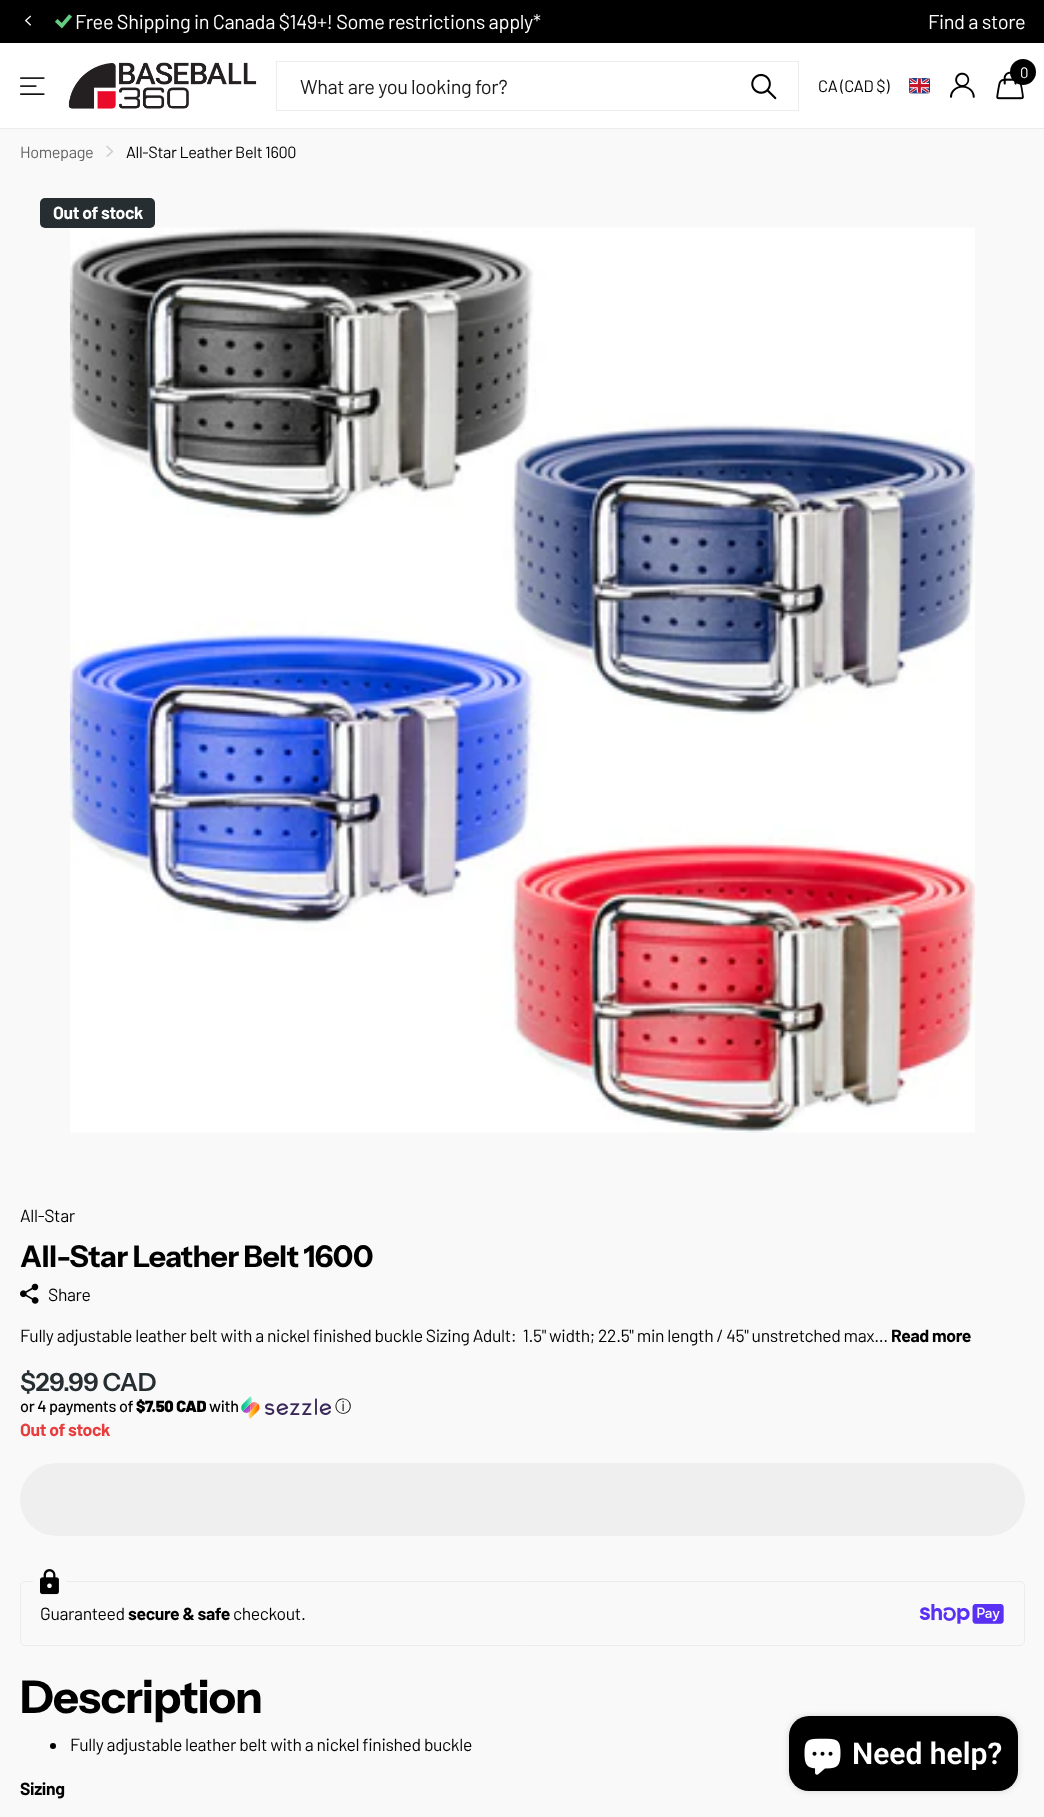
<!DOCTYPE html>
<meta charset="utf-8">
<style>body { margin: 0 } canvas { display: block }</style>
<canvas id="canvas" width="1044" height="1817"></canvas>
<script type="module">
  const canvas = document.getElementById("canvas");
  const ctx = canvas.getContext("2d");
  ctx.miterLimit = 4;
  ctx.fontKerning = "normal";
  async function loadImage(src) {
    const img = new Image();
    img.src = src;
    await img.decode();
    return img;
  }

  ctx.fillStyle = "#f9f9f9";
  ctx.fillRect(0, 0, 1044, 1817);
  ctx.fillStyle = "#000000";
  ctx.fillRect(0, 0, 1044, 43);
  ctx.drawImage(await loadImage("img1.png"), 25, 15, 6, 11);
  ctx.drawImage(await loadImage("img2.png"), 55, 14, 17, 15);
  ctx.letterSpacing = "-0.35px";
  ctx.font = "20px Barlow";
  ctx.fillStyle = "#ffffff";
  ctx.fillText("Free Shipping in Canada $149+! Some restrictions apply*", 75, 29);
  ctx.fillText("Find a store", 928, 29);
  ctx.fillRect(0, 43, 1044, 85);
  ctx.fillStyle = "#ececec";
  ctx.fillRect(0, 128, 1044, 1);
  ctx.drawImage(await loadImage("img3.png"), 20, 77, 25, 18);
  ctx.drawImage(await loadImage("img4.png"), 68, 62, 189, 47);
  ctx.strokeStyle = "#ececec";
  ctx.strokeRect(276.5, 61.5, 522, 49);
  ctx.letterSpacing = "-0.4px";
  ctx.fillStyle = "#1a1a1a";
  ctx.fillText("What are you looking for?", 300, 94);
  ctx.drawImage(await loadImage("img5.png"), 751, 73, 26, 27);
  ctx.letterSpacing = "-0.35px";
  ctx.font = "16.5px Barlow";
  ctx.fillStyle = "#000000";
  ctx.fillText("CA (CAD $)", 818, 92);
  ctx.drawImage(await loadImage("img6.png"), 909, 78, 21, 16);
  ctx.drawImage(await loadImage("img7.png"), 950, 72, 25, 26);
  ctx.drawImage(await loadImage("img8.png"), 996, 71, 28, 29);
  ctx.beginPath();
  ctx.arc(1023, 72, 13, 0, Math.PI * 2);
  ctx.fill();
  ctx.letterSpacing = "0px";
  ctx.font = "15px Barlow";
  ctx.fillStyle = "#ffffff";
  ctx.fillText("0", 1020, 78);
  ctx.save();
  ctx.beginPath();
  ctx.rect(15, 141, 314, 20);
  ctx.clip();
  ctx.letterSpacing = "-0.35px";
  ctx.font = "16.25px Barlow";
  ctx.fillStyle = "#646464";
  ctx.fillText("Homepage", 20, 158);
  ctx.restore();
  ctx.drawImage(await loadImage("img9.png"), 106, 145, 8, 12);
  ctx.letterSpacing = "-0.35px";
  ctx.font = "16.25px Barlow";
  ctx.fillStyle = "#000000";
  ctx.fillText("All-Star Leather Belt 1600", 126, 158);
  ctx.drawImage(await loadImage("img10.png"), 70, 227, 905, 906);
  ctx.fillStyle = "#262e31";
  ctx.beginPath();
  ctx.roundRect(40, 198, 115, 30, 5);
  ctx.fill();
  ctx.font = "bold 17.55px Barlow";
  ctx.fillStyle = "#ffffff";
  ctx.fillText("Out of stock", 53, 219);
  ctx.font = "17.55px Barlow";
  ctx.fillStyle = "#000000";
  ctx.fillText("All-Star", 20, 1222);
  ctx.letterSpacing = "-0.6px";
  ctx.font = "bold 30px Instrument Sans";
  ctx.fillText("All-Star Leather Belt 1600", 20, 1267);
  ctx.drawImage(await loadImage("img11.png"), 20, 1283, 19, 21);
  ctx.letterSpacing = "-0.35px";
  ctx.font = "17.55px Barlow";
  ctx.fillText("Share", 48, 1301);
  ctx.fillText("Fully adjustable leather belt with a nickel finished buckle Sizing Adult:  1.5\" width; 22.5\" min length / 45\" unstretched max...", 20, 1342);
  ctx.font = "bold 17.55px Barlow";
  ctx.fillText("Read more", 891, 1342);
  ctx.letterSpacing = "-0.5px";
  ctx.font = "600 25px Instrument Sans";
  ctx.fillStyle = "#262e31";
  ctx.fillText("$29.99 CAD", 20, 1391);
  ctx.letterSpacing = "-0.35px";
  ctx.font = "500 16.25px Barlow";
  ctx.fillStyle = "#000000";
  ctx.fillText("or 4 payments of", 20, 1412);
  ctx.font = "900 16.25px Barlow";
  ctx.fillText("$7.50 CAD", 136, 1412);
  ctx.font = "500 16.25px Barlow";
  ctx.fillText("with", 209, 1412);
  ctx.drawImage(await loadImage("img12.png"), 241, 1396, 90, 23);
  ctx.font = "500 16.25px WenQuanYi Zen Hei";
  ctx.fillText("ⓘ", 335, 1412);
  ctx.font = "bold 17.55px Barlow";
  ctx.fillStyle = "#e93d3d";
  ctx.fillText("Out of stock", 20, 1436);
  ctx.fillStyle = "#efefef";
  ctx.beginPath();
  ctx.roundRect(20, 1463, 1005, 73, 36.5);
  ctx.fill();
  ctx.beginPath();
  ctx.roundRect(20.5, 1581.5, 1004, 64, 4.5);
  ctx.stroke();
  ctx.fillStyle = "#f9f9f9";
  ctx.fillRect(33, 1581, 33, 1);
  ctx.drawImage(await loadImage("img13.png"), 40, 1569, 19, 26);
  ctx.font = "17.55px Barlow";
  ctx.fillStyle = "#000000";
  ctx.fillText("Guaranteed", 40, 1620);
  ctx.font = "bold 17.55px Barlow";
  ctx.fillText("secure & safe", 128, 1620);
  ctx.font = "17.55px Barlow";
  ctx.fillText("checkout.", 233, 1620);
  ctx.drawImage(await loadImage("img14.png"), 919, 1604, 85, 20);
  ctx.letterSpacing = "-0.9px";
  ctx.font = "bold 45px Instrument Sans";
  ctx.fillText("Description", 20, 1713);
  ctx.beginPath();
  ctx.arc(53, 1746, 3, 0, Math.PI * 2);
  ctx.fill();
  ctx.letterSpacing = "-0.35px";
  ctx.font = "17.5px Barlow";
  ctx.fillText("Fully adjustable leather belt with a nickel finished buckle", 70, 1751);
  ctx.font = "bold 17.5px Barlow";
  ctx.fillText("Sizing", 20, 1795);
  ctx.fillStyle = "rgba(0, 0, 0, 0.15)";
  ctx.filter = "blur(3px)";
  ctx.beginPath();
  ctx.roundRect(789, 1716, 229, 75, 20);
  ctx.fill();
  ctx.filter = "none";
  ctx.fillStyle = "#000000";
  ctx.beginPath();
  ctx.roundRect(789, 1716, 229, 75, 20);
  ctx.fill();
  ctx.drawImage(await loadImage("img15.png"), 804, 1738, 37, 37);
  ctx.letterSpacing = "0px";
  ctx.font = "600 30px Roboto";
  ctx.fillStyle = "#ffffff";
  ctx.fillText("Need help?", 852, 1764);
</script>
